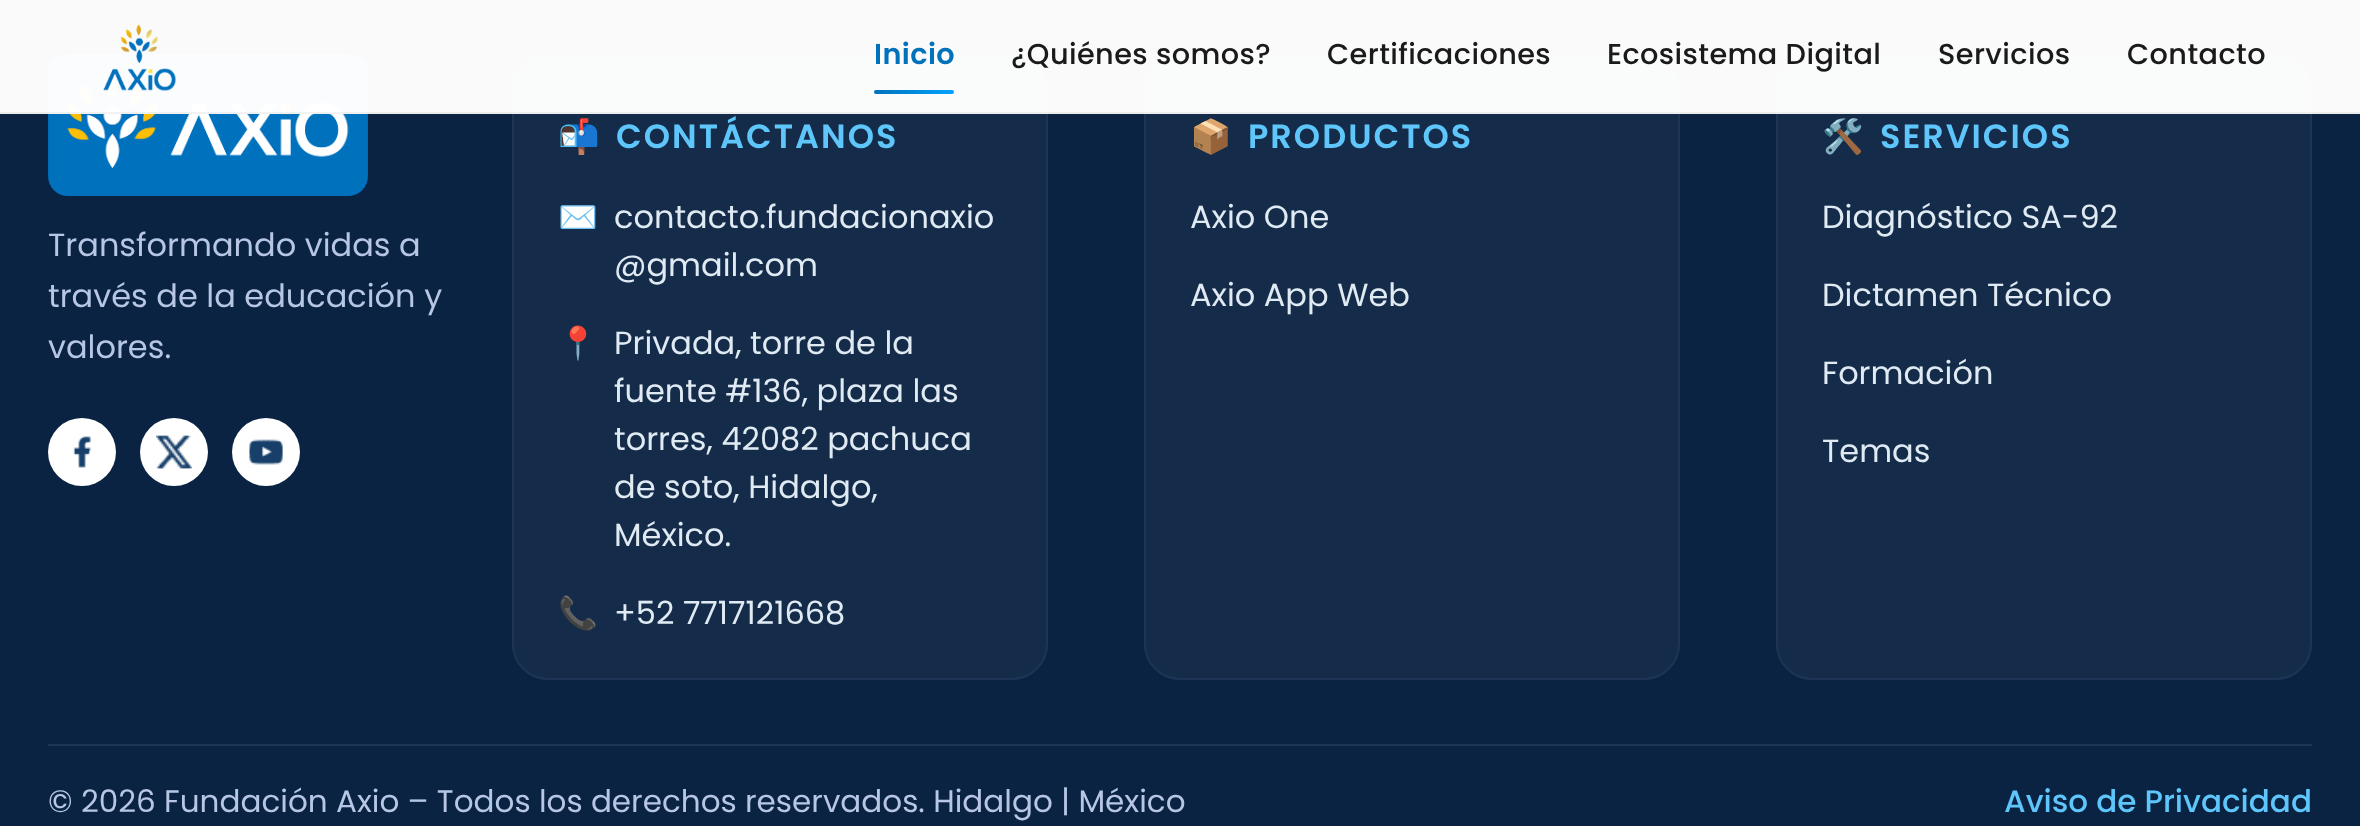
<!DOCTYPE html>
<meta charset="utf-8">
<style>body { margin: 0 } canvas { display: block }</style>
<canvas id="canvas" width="2360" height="826"></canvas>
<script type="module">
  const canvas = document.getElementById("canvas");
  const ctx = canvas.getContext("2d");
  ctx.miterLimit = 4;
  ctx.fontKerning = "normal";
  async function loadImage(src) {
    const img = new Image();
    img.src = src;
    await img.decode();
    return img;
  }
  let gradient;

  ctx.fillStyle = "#0a2342";
  ctx.fillRect(0, 0, 2360, 826);
  ctx.drawImage(await loadImage("img2.png"), 48, 54, 320, 142);
  ctx.fillStyle = "#142c4a";
  ctx.beginPath();
  ctx.roundRect(513, 55, 534, 624, 35);
  ctx.fill();
  ctx.strokeStyle = "#1e3557";
  ctx.lineWidth = 2;
  ctx.stroke();
  ctx.beginPath();
  ctx.roundRect(1145, 55, 534, 624, 35);
  ctx.fill();
  ctx.stroke();
  ctx.beginPath();
  ctx.roundRect(1777, 55, 534, 624, 35);
  ctx.fill();
  ctx.stroke();
  ctx.fillStyle = "rgba(255, 255, 255, 0.98)";
  ctx.fillRect(0, 0, 2360, 114);
  ctx.fillStyle = "rgba(0, 0, 0, 0.05)";
  ctx.fillRect(0, 112, 2360, 2);
  ctx.drawImage(await loadImage("img1.png"), 103, 24, 73, 67);
  ctx.letterSpacing = "0.4px";
  ctx.font = "600 28.75px Poppins";
  ctx.fillStyle = "#0072bc";
  ctx.fillText("Inicio", 874, 64);
  gradient = ctx.createLinearGradient(874, 92, 954, 92);
  gradient.addColorStop(0, "#0072bc");
  gradient.addColorStop(1, "#00a3ff");
  ctx.fillStyle = gradient;
  ctx.beginPath();
  ctx.roundRect(874, 90, 80, 4, 2);
  ctx.fill();
  ctx.font = "500 28.75px Poppins";
  ctx.fillStyle = "#1a1a1a";
  ctx.fillText("¿Quiénes somos?", 1011, 64);
  ctx.fillText("Certificaciones", 1327, 64);
  ctx.fillText("Ecosistema Digital", 1607, 64);
  ctx.fillText("Servicios", 1938, 64);
  ctx.fillText("Contacto", 2127, 64);
  ctx.letterSpacing = "0px";
  ctx.font = "32px Poppins";
  ctx.fillStyle = "#b6c6e3";
  ctx.fillText("Transformando vidas a", 48, 256);
  ctx.fillText("través de la educación y", 48, 307);
  ctx.fillText("valores.", 48, 358);
  ctx.fillStyle = "#ffffff";
  ctx.beginPath();
  ctx.arc(82, 452, 34, 0, Math.PI * 2);
  ctx.fill();
  ctx.drawImage(await loadImage("img3.png"), 73, 436, 18, 32);
  ctx.beginPath();
  ctx.arc(174, 452, 34, 0, Math.PI * 2);
  ctx.fill();
  ctx.drawImage(await loadImage("img4.png"), 156, 435, 36, 34);
  ctx.beginPath();
  ctx.arc(266, 452, 34, 0, Math.PI * 2);
  ctx.fill();
  ctx.drawImage(await loadImage("img5.png"), 249, 439, 34, 26);
  ctx.letterSpacing = "2px";
  ctx.font = "bold 33.5px Noto Color Emoji";
  ctx.fillStyle = "#5ec6fa";
  ctx.fillText("📬", 558, 148);
  ctx.font = "600 33.5px Poppins";
  ctx.fillText("CONTÁCTANOS", 616, 148);
  ctx.letterSpacing = "0px";
  ctx.font = "32px Noto Color Emoji";
  ctx.fillStyle = "#e0eaf3";
  ctx.fillText("✉️", 558, 228);
  ctx.font = "32px Poppins";
  ctx.fillText("contacto.fundacionaxio", 614, 228);
  ctx.fillText("@gmail.com", 614, 276);
  ctx.font = "32px Noto Color Emoji";
  ctx.fillText("📍", 558, 354);
  ctx.font = "32px Poppins";
  ctx.fillText("Privada, torre de la", 614, 354);
  ctx.fillText("fuente #136, plaza las", 614, 402);
  ctx.fillText("torres, 42082 pachuca", 614, 450);
  ctx.fillText("de soto, Hidalgo,", 614, 498);
  ctx.fillText("México.", 614, 546);
  ctx.font = "32px Noto Color Emoji";
  ctx.fillText("📞", 558, 624);
  ctx.font = "32px Poppins";
  ctx.fillText("+52 7717121668", 614, 624);
  ctx.letterSpacing = "2px";
  ctx.font = "bold 33.5px Noto Color Emoji";
  ctx.fillStyle = "#5ec6fa";
  ctx.fillText("📦", 1190, 148);
  ctx.font = "600 33.5px Poppins";
  ctx.fillText("PRODUCTOS", 1248, 148);
  ctx.letterSpacing = "0px";
  ctx.font = "32px Poppins";
  ctx.fillStyle = "#e0eaf3";
  ctx.fillText("Axio One", 1190, 228);
  ctx.fillText("Axio App Web", 1190, 306);
  ctx.letterSpacing = "2px";
  ctx.font = "bold 33.5px Noto Color Emoji";
  ctx.fillStyle = "#5ec6fa";
  ctx.fillText("🛠️", 1822, 148);
  ctx.font = "600 33.5px Poppins";
  ctx.fillText("SERVICIOS", 1880, 148);
  ctx.letterSpacing = "0px";
  ctx.font = "32px Poppins";
  ctx.fillStyle = "#e0eaf3";
  ctx.fillText("Diagnóstico SA-92", 1822, 228);
  ctx.fillText("Dictamen Técnico", 1822, 306);
  ctx.fillText("Formación", 1822, 384);
  ctx.fillText("Temas", 1822, 462);
  ctx.fillStyle = "#1e3557";
  ctx.fillRect(48, 744, 2264, 2);
  ctx.font = "31.05px Poppins";
  ctx.fillStyle = "#b6c6e3";
  ctx.fillText("© 2026 Fundación Axio – Todos los derechos reservados. Hidalgo | México", 48, 812);
  ctx.font = "500 31.05px Poppins";
  ctx.fillStyle = "#5ec6fa";
  ctx.fillText("Aviso de Privacidad", 2004, 812);
</script>
